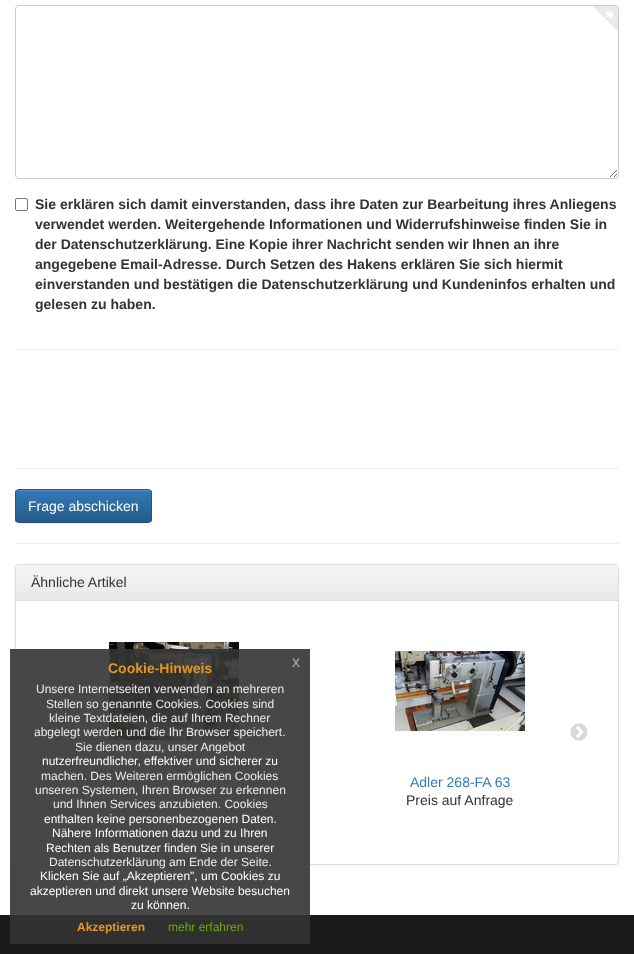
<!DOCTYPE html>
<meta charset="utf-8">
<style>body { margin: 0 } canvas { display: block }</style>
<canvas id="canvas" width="634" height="954"></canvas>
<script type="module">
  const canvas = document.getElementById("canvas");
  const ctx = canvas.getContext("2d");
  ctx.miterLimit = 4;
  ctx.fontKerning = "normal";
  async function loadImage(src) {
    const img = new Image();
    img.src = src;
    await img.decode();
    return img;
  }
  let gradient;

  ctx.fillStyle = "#ffffff";
  ctx.fillRect(0, 0, 634, 954);
  ctx.drawImage(await loadImage("img1.png"), 592, 6, 26, 171);
  ctx.beginPath();
  ctx.roundRect(15.5, 5.5, 603, 173, 3.5);
  ctx.strokeStyle = "#cccccc";
  ctx.stroke();
  ctx.beginPath();
  ctx.roundRect(15.5, 198.5, 12, 12, 1.5);
  ctx.strokeStyle = "#767676";
  ctx.stroke();
  ctx.font = "bold 14px Liberation Sans";
  ctx.fillStyle = "#333333";
  ctx.fillText("Sie erklären sich damit einverstanden, dass ihre Daten zur Bearbeitung ihres Anliegens", 35, 209);
  ctx.fillText("verwendet werden. Weitergehende Informationen und Widerrufshinweise finden Sie in", 35, 229);
  ctx.fillText("der Datenschutzerklärung. Eine Kopie ihrer Nachricht senden wir Ihnen an ihre", 35, 249);
  ctx.fillText("angegebene Email-Adresse. Durch Setzen des Hakens erklären Sie sich hiermit", 35, 269);
  ctx.fillText("einverstanden und bestätigen die Datenschutzerklärung und Kundeninfos erhalten und", 35, 289);
  ctx.fillText("gelesen zu haben.", 35, 309);
  ctx.fillStyle = "#eeeeee";
  ctx.fillRect(15, 349, 604, 1);
  ctx.fillRect(15, 468, 604, 1);
  ctx.fillStyle = "rgba(0, 0, 0, 0.07)";
  ctx.filter = "blur(0.5px)";
  ctx.beginPath();
  ctx.roundRect(15, 490, 137, 34, 4);
  ctx.fill();
  ctx.filter = "none";
  ctx.save();
  ctx.beginPath();
  ctx.roundRect(15, 489, 137, 34, 4);
  ctx.clip();
  gradient = ctx.createLinearGradient(84, 490, 84, 522);
  gradient.addColorStop(0, "#337ab7");
  gradient.addColorStop(1, "#265a88");
  ctx.fillStyle = gradient;
  ctx.fillRect(15, 490, 137, 32);
  ctx.restore();
  ctx.fillStyle = "#528ec1";
  ctx.beginPath();
  ctx.moveTo(19, 491);
  ctx.lineTo(148, 491);
  ctx.bezierCurveTo(150, 491, 151, 492, 151, 494);
  ctx.bezierCurveTo(151, 492, 151, 490, 149, 490);
  ctx.lineTo(18, 490);
  ctx.bezierCurveTo(16, 490, 16, 492, 16, 494);
  ctx.bezierCurveTo(16, 492, 17, 491, 19, 491);
  ctx.closePath();
  ctx.fill();
  ctx.beginPath();
  ctx.roundRect(15.5, 489.5, 136, 33, 3.5);
  ctx.strokeStyle = "#245580";
  ctx.stroke();
  ctx.font = "14px Liberation Sans";
  ctx.fillStyle = "#ffffff";
  ctx.fillText("Frage abschicken", 28, 511);
  ctx.fillStyle = "#eeeeee";
  ctx.fillRect(15, 543, 604, 1);
  ctx.fillStyle = "rgba(0, 0, 0, 0.05)";
  ctx.filter = "blur(1px)";
  ctx.beginPath();
  ctx.roundRect(15, 565, 604, 301, 4);
  ctx.fill();
  ctx.filter = "none";
  ctx.fillStyle = "#ffffff";
  ctx.beginPath();
  ctx.roundRect(15.5, 564.5, 603, 300, 3.5);
  ctx.fill();
  ctx.strokeStyle = "#dddddd";
  ctx.stroke();
  gradient = ctx.createLinearGradient(317, 565, 317, 600);
  gradient.addColorStop(0, "#f5f5f5");
  gradient.addColorStop(1, "#e8e8e8");
  ctx.fillStyle = gradient;
  ctx.beginPath();
  ctx.roundRect(16, 565, 602, 35, [3, 3, 0, 0]);
  ctx.fill();
  ctx.fillStyle = "#dddddd";
  ctx.fillRect(16, 600, 602, 1);
  ctx.fillStyle = "#333333";
  ctx.fillText("Ähnliche Artikel", 31, 587);
  ctx.drawImage(await loadImage("img2.png"), 46, 723, 18, 18);
  ctx.drawImage(await loadImage("img3.png"), 570, 723, 18, 18);
  ctx.drawImage(await loadImage("img4.png"), 109, 642, 130, 104);
  ctx.drawImage(await loadImage("img5.png"), 395, 650, 130, 87);
  ctx.fillStyle = "#337ab7";
  ctx.fillText("Adler 268-FA 63", 410, 787);
  ctx.fillStyle = "#333333";
  ctx.fillText("Preis auf Anfrage", 406, 805);
  ctx.fillStyle = "#1a1a1a";
  ctx.fillRect(0, 915, 634, 39);
  ctx.fillStyle = "rgba(51, 51, 51, 0.9)";
  ctx.fillRect(10, 649, 300, 295);
  ctx.font = "bold 14px Liberation Sans";
  ctx.fillStyle = "#e39720";
  ctx.fillText("Cookie-Hinweis", 108, 673);
  ctx.font = "16px Liberation Sans";
  ctx.fillStyle = "#ababab";
  ctx.fillText("x", 292, 667);
  ctx.font = "12px Liberation Sans";
  ctx.fillStyle = "#ececec";
  ctx.fillText("Unsere Internetseiten verwenden an mehreren", 36, 693);
  ctx.fillText("Stellen so genannte Cookies. Cookies sind", 46, 708);
  ctx.fillText("kleine Textdateien, die auf Ihrem Rechner", 49, 722);
  ctx.fillText("abgelegt werden und die Ihr Browser speichert.", 34, 736);
  ctx.fillText("Sie dienen dazu, unser Angebot", 75, 751);
  ctx.fillStyle = "#ffffff";
  ctx.fillText("nutzerfreundlicher, effektiver und sicherer zu", 42, 765);
  ctx.fillStyle = "#ececec";
  ctx.fillText("machen. Des Weiteren ermöglichen Cookies", 41, 780);
  ctx.fillText("unseren Systemen, Ihren Browser zu erkennen", 35, 794);
  ctx.fillText("und Ihnen Services anzubieten. Cookies", 53, 808);
  ctx.fillStyle = "#ffffff";
  ctx.fillText("enthalten keine personenbezogenen Daten.", 44, 823);
  ctx.fillText("Nähere Informationen dazu und zu Ihren", 52, 837);
  ctx.fillText("Rechten als Benutzer finden Sie in unserer", 46, 852);
  ctx.fillStyle = "#ececec";
  ctx.fillText("Datenschutzerklärung am Ende der Seite.", 49, 866);
  ctx.fillStyle = "#ffffff";
  ctx.fillText("Klicken Sie auf „Akzeptieren\", um Cookies zu", 40, 880);
  ctx.fillText("akzeptieren und direkt unsere Website besuchen", 30, 895);
  ctx.fillText("zu können.", 131, 909);
  ctx.font = "bold 12px Liberation Sans";
  ctx.fillStyle = "#e39720";
  ctx.fillText("Akzeptieren", 77, 931);
  ctx.font = "12px Liberation Sans";
  ctx.fillStyle = "#70a903";
  ctx.fillText("mehr erfahren", 168, 931);
</script>
